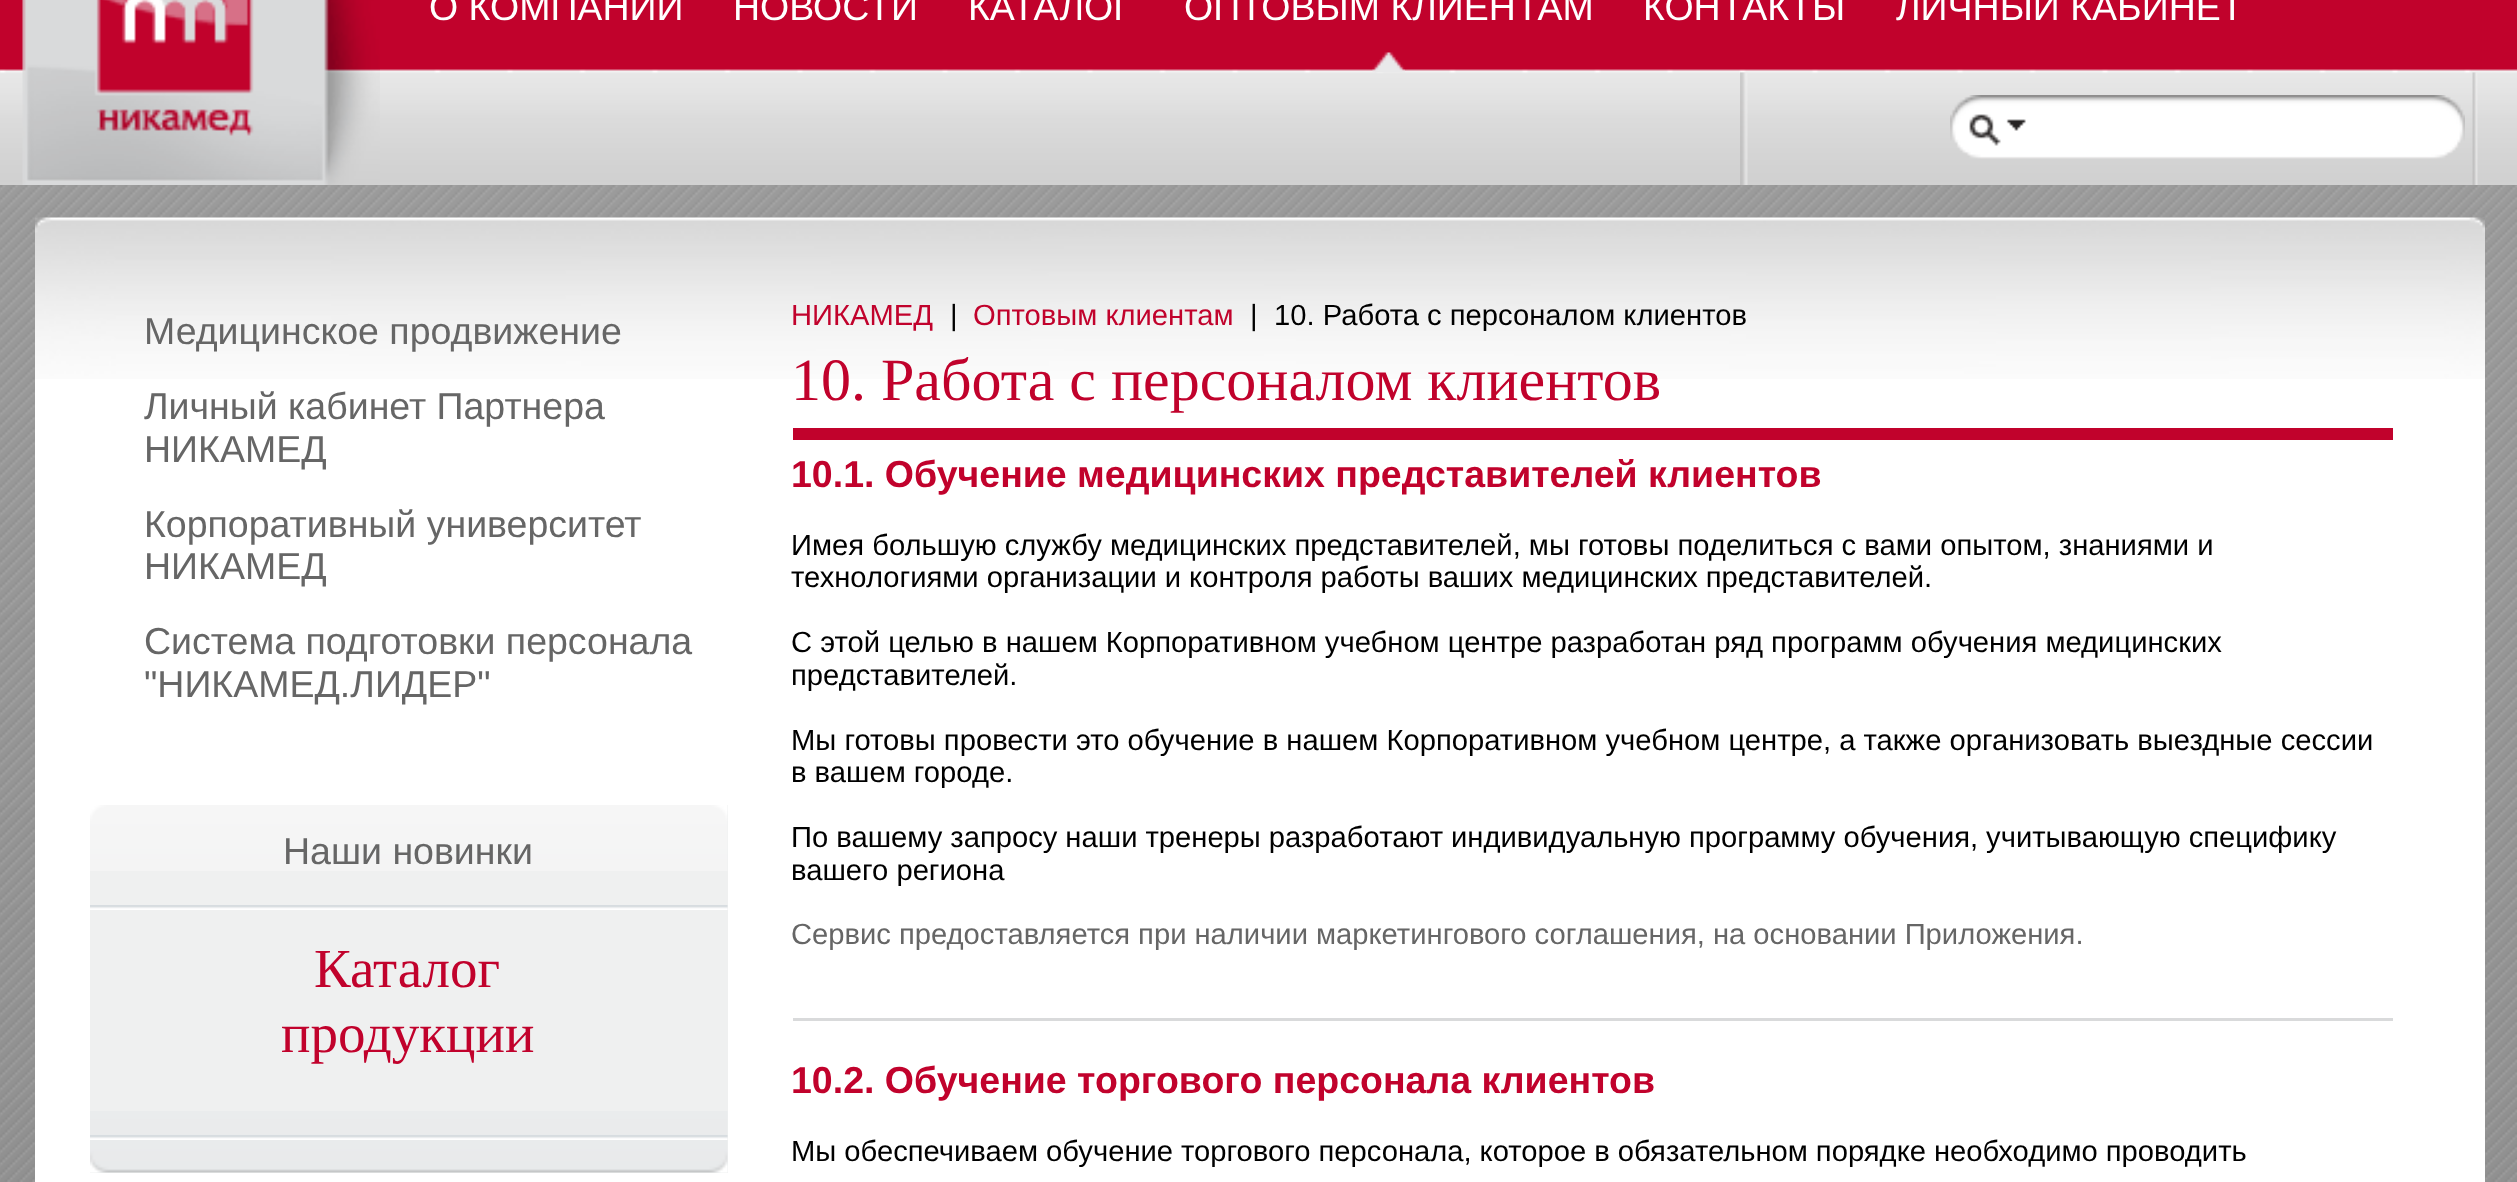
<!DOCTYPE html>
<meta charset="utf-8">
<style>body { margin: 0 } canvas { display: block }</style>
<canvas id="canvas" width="2517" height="1182"></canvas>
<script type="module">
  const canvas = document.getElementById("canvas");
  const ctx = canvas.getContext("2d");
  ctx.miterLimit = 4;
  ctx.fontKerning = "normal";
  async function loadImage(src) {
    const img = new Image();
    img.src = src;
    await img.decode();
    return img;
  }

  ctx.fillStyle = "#ffffff";
  ctx.fillRect(0, 0, 2517, 1182);
  ctx.drawImage(await loadImage("img1.png"), 0, 0, 2517, 185);
  ctx.drawImage(await loadImage("img2.png"), 22, 0, 358, 185);
  ctx.font = "37.5px Liberation Sans";
  ctx.fillText("О КОМПАНИИ", 429, 20);
  ctx.fillText("НОВОСТИ", 733, 20);
  ctx.fillText("КАТАЛОГ", 968, 20);
  ctx.drawImage(await loadImage("img3.png"), 1372, 52, 33, 21);
  ctx.fillText("ОПТОВЫМ КЛИЕНТАМ", 1184, 20);
  ctx.fillText("КОНТАКТЫ", 1643, 20);
  ctx.fillText("ЛИЧНЫЙ КАБИНЕТ", 1896, 20);
  ctx.drawImage(await loadImage("img4.png"), 2472, 72, 6, 113);
  ctx.drawImage(await loadImage("img5.png"), 1740, 72, 8, 113);
  ctx.drawImage(await loadImage("img6.png"), 1950, 95, 515, 64);
  ctx.drawImage(await loadImage("img7.png"), 1969, 114, 57, 32);
  ctx.drawImage(await loadImage("img8.png"), 0, 185, 2517, 997);
  ctx.fillRect(35, 379, 2450, 803);
  ctx.drawImage(await loadImage("img9.png"), 35, 217, 2450, 162);
  ctx.fillStyle = "#666666";
  ctx.fillText("Медицинское продвижение", 144, 344);
  ctx.fillText("Личный кабинет Партнера", 144, 419);
  ctx.fillText("НИКАМЕД", 144, 462);
  ctx.fillText("Корпоративный университет", 144, 537);
  ctx.fillText("НИКАМЕД", 144, 579);
  ctx.fillText("Система подготовки персонала", 144, 654);
  ctx.fillText("\"НИКАМЕД.ЛИДЕР\"", 144, 697);
  ctx.fillStyle = "#eff0f0";
  ctx.fillRect(90, 805, 638, 368);
  ctx.drawImage(await loadImage("img10.png"), 90, 805, 638, 66);
  ctx.drawImage(await loadImage("img11.png"), 90, 1111, 638, 62);
  ctx.fillStyle = "#666666";
  ctx.fillText("Наши новинки", 283, 864);
  ctx.drawImage(await loadImage("img12.png"), 90, 905, 638, 5);
  ctx.font = "55px Liberation Serif";
  ctx.fillStyle = "#c1022c";
  ctx.fillText("Каталог", 314, 987);
  ctx.fillText("продукции", 281, 1052);
  ctx.drawImage(await loadImage("img13.png"), 90, 1135, 638, 5);
  ctx.font = "29.2px Liberation Sans";
  ctx.fillText("НИКАМЕД", 791, 325);
  ctx.fillStyle = "#000000";
  ctx.fillText("|", 950, 325);
  ctx.fillStyle = "#c1022c";
  ctx.fillText("Оптовым клиентам", 973, 325);
  ctx.fillStyle = "#000000";
  ctx.fillText("|", 1250, 325);
  ctx.fillText("10. Работа с персоналом клиентов", 1274, 325);
  ctx.fillStyle = "#c1022c";
  ctx.fillRect(793, 428, 1600, 12);
  ctx.font = "60px Liberation Serif";
  ctx.fillText("10. Работа с персоналом клиентов", 791, 400);
  ctx.font = "bold 37.5px Liberation Sans";
  ctx.fillText("10.1. Обучение медицинских представителей клиентов", 791, 487);
  ctx.font = "29.2px Liberation Sans";
  ctx.fillStyle = "#000000";
  ctx.fillText("Имея большую службу медицинских представителей, мы готовы поделиться с вами опытом, знаниями и", 791, 555);
  ctx.wordSpacing = "-0.1px";
  ctx.fillText("технологиями организации и контроля работы ваших медицинских представителей.", 791, 587);
  ctx.wordSpacing = "0px";
  ctx.fillText("С этой целью в нашем Корпоративном учебном центре разработан ряд программ обучения медицинских", 791, 652);
  ctx.fillText("представителей.", 791, 685);
  ctx.fillText("Мы готовы провести это обучение в нашем Корпоративном учебном центре, а также организовать выездные сессии", 791, 750);
  ctx.fillText("в вашем городе.", 791, 782);
  ctx.wordSpacing = "-0.1px";
  ctx.fillText("По вашему запросу наши тренеры разработают индивидуальную программу обучения, учитывающую специфику", 791, 847);
  ctx.wordSpacing = "0px";
  ctx.fillText("вашего региона", 791, 880);
  ctx.wordSpacing = "-0.1px";
  ctx.fillStyle = "#666666";
  ctx.fillText("Сервис предоставляется при наличии маркетингового соглашения, на основании Приложения.", 791, 944);
  ctx.fillStyle = "#d9dadb";
  ctx.fillRect(793, 1018, 1600, 3);
  ctx.wordSpacing = "0px";
  ctx.font = "bold 37.5px Liberation Sans";
  ctx.fillStyle = "#c1022c";
  ctx.fillText("10.2. Обучение торгового персонала клиентов", 791, 1093);
  ctx.wordSpacing = "-0.1px";
  ctx.font = "29.2px Liberation Sans";
  ctx.fillStyle = "#000000";
  ctx.fillText("Мы обеспечиваем обучение торгового персонала, которое в обязательном порядке необходимо проводить", 791, 1161);
</script>
